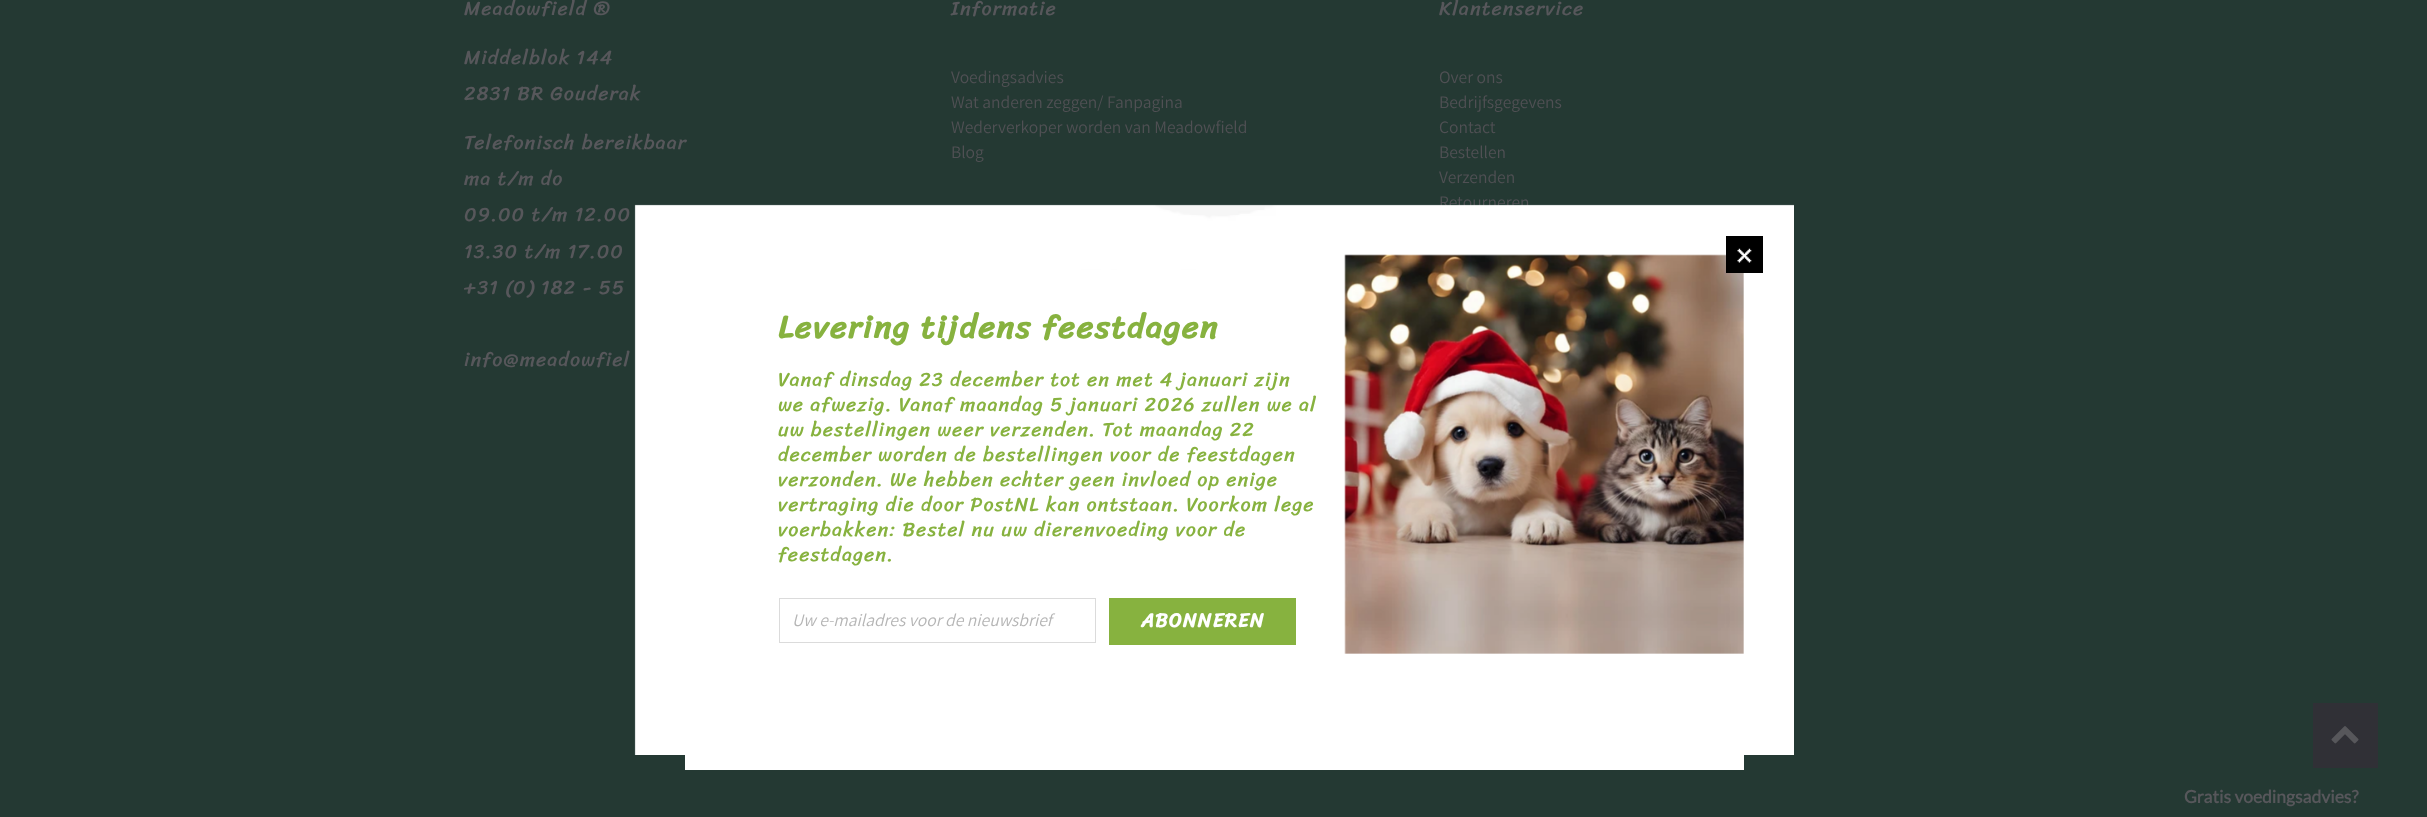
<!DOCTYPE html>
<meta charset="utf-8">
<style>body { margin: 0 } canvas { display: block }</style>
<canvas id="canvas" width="2427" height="817"></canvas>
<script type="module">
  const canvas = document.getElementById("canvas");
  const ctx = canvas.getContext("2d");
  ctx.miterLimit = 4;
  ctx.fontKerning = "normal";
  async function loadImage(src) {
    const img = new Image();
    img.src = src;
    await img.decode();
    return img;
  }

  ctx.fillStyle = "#243933";
  ctx.fillRect(0, 0, 2427, 817);
  ctx.letterSpacing = "1px";
  ctx.font = "20px Sriracha";
  ctx.fillStyle = "#57575b";
  ctx.fillText("Meadowfield ®", 464, 15);
  ctx.fillText("Middelblok 144", 464, 64);
  ctx.fillText("2831 BR Gouderak", 464, 100);
  ctx.fillText("Telefonisch bereikbaar", 464, 149);
  ctx.fillText("ma t/m do", 464, 185);
  ctx.fillText("09.00 t/m 12.00", 464, 221);
  ctx.fillText("13.30 t/m 17.00", 464, 258);
  ctx.fillText("+31 (0) 182 - 55", 464, 294);
  ctx.fillText("info@meadowfiel", 464, 366);
  ctx.fillText("Informatie", 951, 15);
  ctx.letterSpacing = "0px";
  ctx.font = "17.5px Assistant";
  ctx.fillStyle = "#505054";
  ctx.fillText("Voedingsadvies", 951, 83);
  ctx.fillText("Wat anderen zeggen/ Fanpagina", 951, 108);
  ctx.fillText("Wederverkoper worden van Meadowfield", 951, 133);
  ctx.fillText("Blog", 951, 158);
  ctx.letterSpacing = "1px";
  ctx.font = "20px Sriracha";
  ctx.fillStyle = "#57575b";
  ctx.fillText("Klantenservice", 1439, 15);
  ctx.letterSpacing = "0px";
  ctx.font = "17.5px Assistant";
  ctx.fillStyle = "#505054";
  ctx.fillText("Over ons", 1439, 83);
  ctx.fillText("Bedrijfsgegevens", 1439, 108);
  ctx.fillText("Contact", 1439, 133);
  ctx.fillText("Bestellen", 1439, 158);
  ctx.fillText("Verzenden", 1439, 183);
  ctx.fillText("Retourneren", 1439, 208);
  ctx.drawImage(await loadImage("img1.png"), 634, 204, 1160, 551);
  ctx.fillStyle = "#ffffff";
  ctx.fillRect(685, 270, 1059, 500);
  ctx.letterSpacing = "1.6px";
  ctx.font = "bold 32.5px Sriracha";
  ctx.fillStyle = "#87b23f";
  ctx.fillText("Levering tijdens feestdagen", 778, 338);
  ctx.letterSpacing = "1px";
  ctx.font = "20px Sriracha";
  ctx.fillText("Vanaf dinsdag 23 december tot en met 4 januari zijn", 778, 386);
  ctx.fillText("we afwezig. Vanaf maandag 5 januari 2026 zullen we al", 778, 411);
  ctx.fillText("uw bestellingen weer verzenden. Tot maandag 22", 778, 436);
  ctx.fillText("december worden de bestellingen voor de feestdagen", 778, 461);
  ctx.fillText("verzonden. We hebben echter geen invloed op enige", 778, 486);
  ctx.fillText("vertraging die door PostNL kan ontstaan. Voorkom lege", 778, 511);
  ctx.fillText("voerbakken: Bestel nu uw dierenvoeding voor de", 778, 536);
  ctx.fillText("feestdagen.", 778, 561);
  ctx.strokeStyle = "#dbdbdb";
  ctx.strokeRect(779.5, 598.5, 316, 44);
  ctx.letterSpacing = "0px";
  ctx.font = "italic 17.5px Assistant";
  ctx.fillStyle = "#b5b5b5";
  ctx.fillText("Uw e-mailadres voor de nieuwsbrief", 792, 626);
  ctx.fillStyle = "#87b23f";
  ctx.fillRect(1109, 598, 187, 47);
  ctx.letterSpacing = "1px";
  ctx.font = "bold 20px Sriracha";
  ctx.fillStyle = "#ffffff";
  ctx.fillText("ABONNEREN", 1141, 627);
  ctx.drawImage(await loadImage("img2.png"), 1344, 254, 400, 400);
  ctx.fillStyle = "#000000";
  ctx.fillRect(1726, 236, 37, 37);
  ctx.drawImage(await loadImage("img3.png"), 1737, 248, 15, 15);
  ctx.fillStyle = "#303036";
  ctx.fillRect(2313, 703, 65, 65);
  ctx.drawImage(await loadImage("img4.png"), 2331, 726, 28, 18);
  ctx.letterSpacing = "0px";
  ctx.font = "bold 17.5px Lato";
  ctx.fillStyle = "#57575b";
  ctx.fillText("Gratis voedingsadvies?", 2184, 803);
</script>
